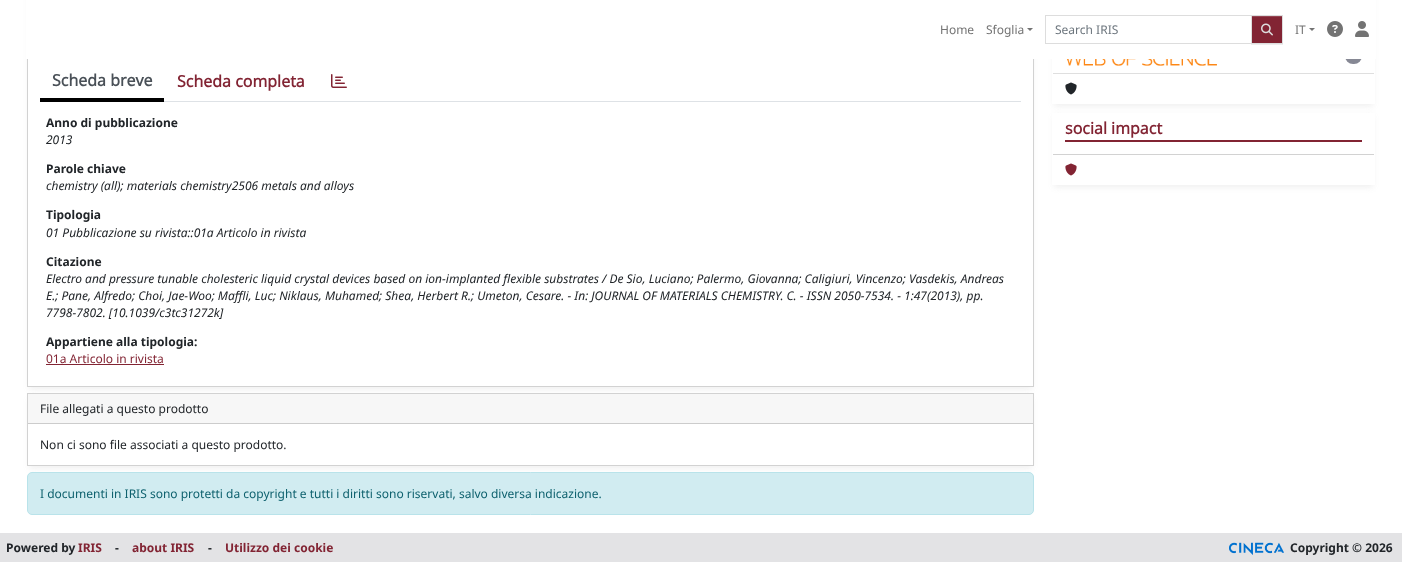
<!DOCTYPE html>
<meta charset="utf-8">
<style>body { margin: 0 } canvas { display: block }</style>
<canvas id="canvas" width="1402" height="562"></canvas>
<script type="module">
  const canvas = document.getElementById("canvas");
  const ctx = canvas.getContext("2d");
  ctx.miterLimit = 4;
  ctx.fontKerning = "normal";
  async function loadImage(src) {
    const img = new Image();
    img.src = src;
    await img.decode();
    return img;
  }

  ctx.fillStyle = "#ffffff";
  ctx.fillRect(0, 0, 1402, 562);
  ctx.save();
  ctx.beginPath();
  ctx.moveTo(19, 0);
  ctx.lineTo(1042, 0);
  ctx.lineTo(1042, 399);
  ctx.lineTo(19, 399);
  ctx.closePath();
  ctx.moveTo(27, -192);
  ctx.lineTo(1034, -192);
  ctx.lineTo(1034, 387);
  ctx.lineTo(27, 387);
  ctx.closePath();
  ctx.clip("evenodd");
  ctx.fillStyle = "#eeeeee";
  ctx.filter = "blur(3px)";
  ctx.beginPath();
  ctx.rect(29, -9, 1003, 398);
  ctx.fill();
  ctx.filter = "none";
  ctx.restore();
  ctx.strokeStyle = "#d2d2d2";
  ctx.strokeRect(27.5, -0.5, 1006, 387);
  ctx.save();
  ctx.beginPath();
  ctx.moveTo(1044, 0);
  ctx.lineTo(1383, 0);
  ctx.lineTo(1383, 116);
  ctx.lineTo(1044, 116);
  ctx.closePath();
  ctx.moveTo(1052, -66);
  ctx.lineTo(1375, -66);
  ctx.lineTo(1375, 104);
  ctx.lineTo(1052, 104);
  ctx.closePath();
  ctx.clip("evenodd");
  ctx.fillStyle = "#eeeeee";
  ctx.filter = "blur(3px)";
  ctx.beginPath();
  ctx.rect(1054, -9, 319, 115);
  ctx.fill();
  ctx.filter = "none";
  ctx.restore();
  ctx.fillStyle = "#868894";
  ctx.beginPath();
  ctx.roundRect(1345, 48, 17, 16, 8);
  ctx.fill();
  ctx.fillStyle = "#ffffff";
  ctx.fillRect(26, 0, 1350, 59);
  ctx.font = "12px Noto Sans";
  ctx.fillStyle = "#737373";
  ctx.fillText("Home", 940, 34);
  ctx.fillText("Sfoglia", 986, 34);
  ctx.beginPath();
  ctx.moveTo(1027, 28);
  ctx.lineTo(1033, 28);
  ctx.lineTo(1030, 31);
  ctx.closePath();
  ctx.fill();
  ctx.strokeStyle = "#dddddd";
  ctx.strokeRect(1045.5, 15.5, 206, 28);
  ctx.fillStyle = "#6c757d";
  ctx.fillText("Search IRIS", 1055, 34);
  ctx.fillStyle = "rgba(0, 0, 0, 0.07)";
  ctx.filter = "blur(0.5px)";
  ctx.beginPath();
  ctx.rect(1251, 16, 32, 29);
  ctx.fill();
  ctx.filter = "none";
  ctx.fillStyle = "#822433";
  ctx.fillRect(1252, 17, 30, 26);
  ctx.fillStyle = "#954552";
  ctx.fillRect(1252, 16, 30, 1);
  ctx.strokeRect(1251.5, 15.5, 31, 28);
  ctx.drawImage(await loadImage("img1.png"), 1261, 23, 12, 13);
  ctx.fillStyle = "#737373";
  ctx.fillText("IT", 1295, 34);
  ctx.beginPath();
  ctx.moveTo(1309, 28);
  ctx.lineTo(1315, 28);
  ctx.lineTo(1312, 31);
  ctx.closePath();
  ctx.fill();
  ctx.drawImage(await loadImage("img2.png"), 1327, 21, 16, 16);
  ctx.drawImage(await loadImage("img3.png"), 1355, 21, 14, 16);
  ctx.fillStyle = "#dee2e6";
  ctx.fillRect(164, 101, 857, 1);
  ctx.fillStyle = "#000000";
  ctx.fillRect(40, 98, 124, 4);
  ctx.font = "bold 16px Open Sans";
  ctx.fillStyle = "#495057";
  ctx.fillText("Scheda breve", 52, 86);
  ctx.fillStyle = "#822433";
  ctx.fillText("Scheda completa", 177, 87);
  ctx.drawImage(await loadImage("img4.png"), 331, 74, 16, 14);
  ctx.font = "bold 12px Noto Sans";
  ctx.fillStyle = "#212529";
  ctx.fillText("Anno di pubblicazione", 46, 127);
  ctx.font = "italic 12px Noto Sans";
  ctx.fillText("2013", 46, 144);
  ctx.font = "bold 12px Noto Sans";
  ctx.fillText("Parole chiave", 46, 173);
  ctx.font = "italic 12px Noto Sans";
  ctx.fillText("chemistry (all); materials chemistry2506 metals and alloys", 46, 190);
  ctx.font = "bold 12px Noto Sans";
  ctx.fillText("Tipologia", 46, 219);
  ctx.font = "italic 12px Noto Sans";
  ctx.fillText("01 Pubblicazione su rivista::01a Articolo in rivista", 46, 237);
  ctx.font = "bold 12px Noto Sans";
  ctx.fillText("Citazione", 46, 266);
  ctx.font = "italic 12px Noto Sans";
  ctx.fillText("Electro and pressure tunable cholesteric liquid crystal devices based on ion-implanted flexible substrates / De Sio, Luciano; Palermo, Giovanna; Caligiuri, Vincenzo; Vasdekis, Andreas", 46, 283);
  ctx.fillText("E.; Pane, Alfredo; Choi, Jae-Woo; Maffli, Luc; Niklaus, Muhamed; Shea, Herbert R.; Umeton, Cesare. - In: JOURNAL OF MATERIALS CHEMISTRY. C. - ISSN 2050-7534. - 1:47(2013), pp.", 46, 300);
  ctx.fillText("7798-7802. [10.1039/c3tc31272k]", 46, 317);
  ctx.font = "bold 12px Noto Sans";
  ctx.fillText("Appartiene alla tipologia:", 46, 346);
  ctx.font = "12px Noto Sans";
  ctx.fillStyle = "#822433";
  ctx.fillText("01a Articolo in rivista", 46, 363);
  ctx.fillRect(46, 364, 118, 1);
  ctx.fillStyle = "#eeeeee";
  ctx.filter = "blur(3px)";
  ctx.beginPath();
  ctx.rect(29, 399, 1003, 69);
  ctx.fill();
  ctx.filter = "none";
  ctx.fillStyle = "#ffffff";
  ctx.fillRect(28, 424, 1005, 41);
  ctx.strokeStyle = "#d2d2d2";
  ctx.strokeRect(27.5, 393.5, 1006, 72);
  ctx.fillStyle = "#f7f7f7";
  ctx.fillRect(28, 394, 1005, 29);
  ctx.fillStyle = "#cccccc";
  ctx.fillRect(28, 423, 1005, 1);
  ctx.fillStyle = "#212529";
  ctx.fillText("File allegati a questo prodotto", 40, 413);
  ctx.fillText("Non ci sono file associati a questo prodotto.", 40, 449);
  ctx.fillStyle = "#d1ecf1";
  ctx.beginPath();
  ctx.roundRect(27.5, 472.5, 1006, 42, 4.5);
  ctx.fill();
  ctx.strokeStyle = "#b9e3ea";
  ctx.stroke();
  ctx.fillStyle = "#0e616e";
  ctx.fillText("I documenti in IRIS sono protetti da copyright e tutti i diritti sono riservati, salvo diversa indicazione.", 40, 498);
  ctx.fillStyle = "#dfdfdf";
  ctx.fillRect(1053, 73, 321, 1);
  ctx.drawImage(await loadImage("img5.png"), 1065, 59, 157, 7);
  ctx.drawImage(await loadImage("img6.png"), 1065, 82, 12, 13);
  ctx.fillStyle = "#eeeeee";
  ctx.filter = "blur(3px)";
  ctx.beginPath();
  ctx.rect(1054, 116, 319, 71);
  ctx.fill();
  ctx.filter = "none";
  ctx.fillStyle = "#ffffff";
  ctx.fillRect(1052, 113, 323, 72);
  ctx.fillStyle = "#d2d2d2";
  ctx.fillRect(1053, 154, 321, 1);
  ctx.fillStyle = "#822433";
  ctx.fillRect(1065, 140, 297, 2);
  ctx.font = "bold 16px Open Sans";
  ctx.fillText("social impact", 1065, 134);
  ctx.drawImage(await loadImage("img7.png"), 1065, 163, 12, 13);
  ctx.fillStyle = "#e3e3e5";
  ctx.fillRect(0, 533, 1402, 29);
  ctx.font = "bold 12px Noto Sans";
  ctx.fillStyle = "#212529";
  ctx.fillText("Powered by", 6, 552);
  ctx.fillStyle = "#822433";
  ctx.fillText("IRIS", 78, 552);
  ctx.fillStyle = "#212529";
  ctx.fillText("-", 115, 552);
  ctx.fillStyle = "#822433";
  ctx.fillText("about IRIS", 132, 552);
  ctx.fillStyle = "#212529";
  ctx.fillText("-", 208, 552);
  ctx.fillStyle = "#822433";
  ctx.fillText("Utilizzo dei cookie", 225, 552);
  ctx.drawImage(await loadImage("img8.png"), 1229, 542, 55, 13);
  ctx.fillStyle = "#212529";
  ctx.fillText("Copyright © 2026", 1290, 552);
</script>
